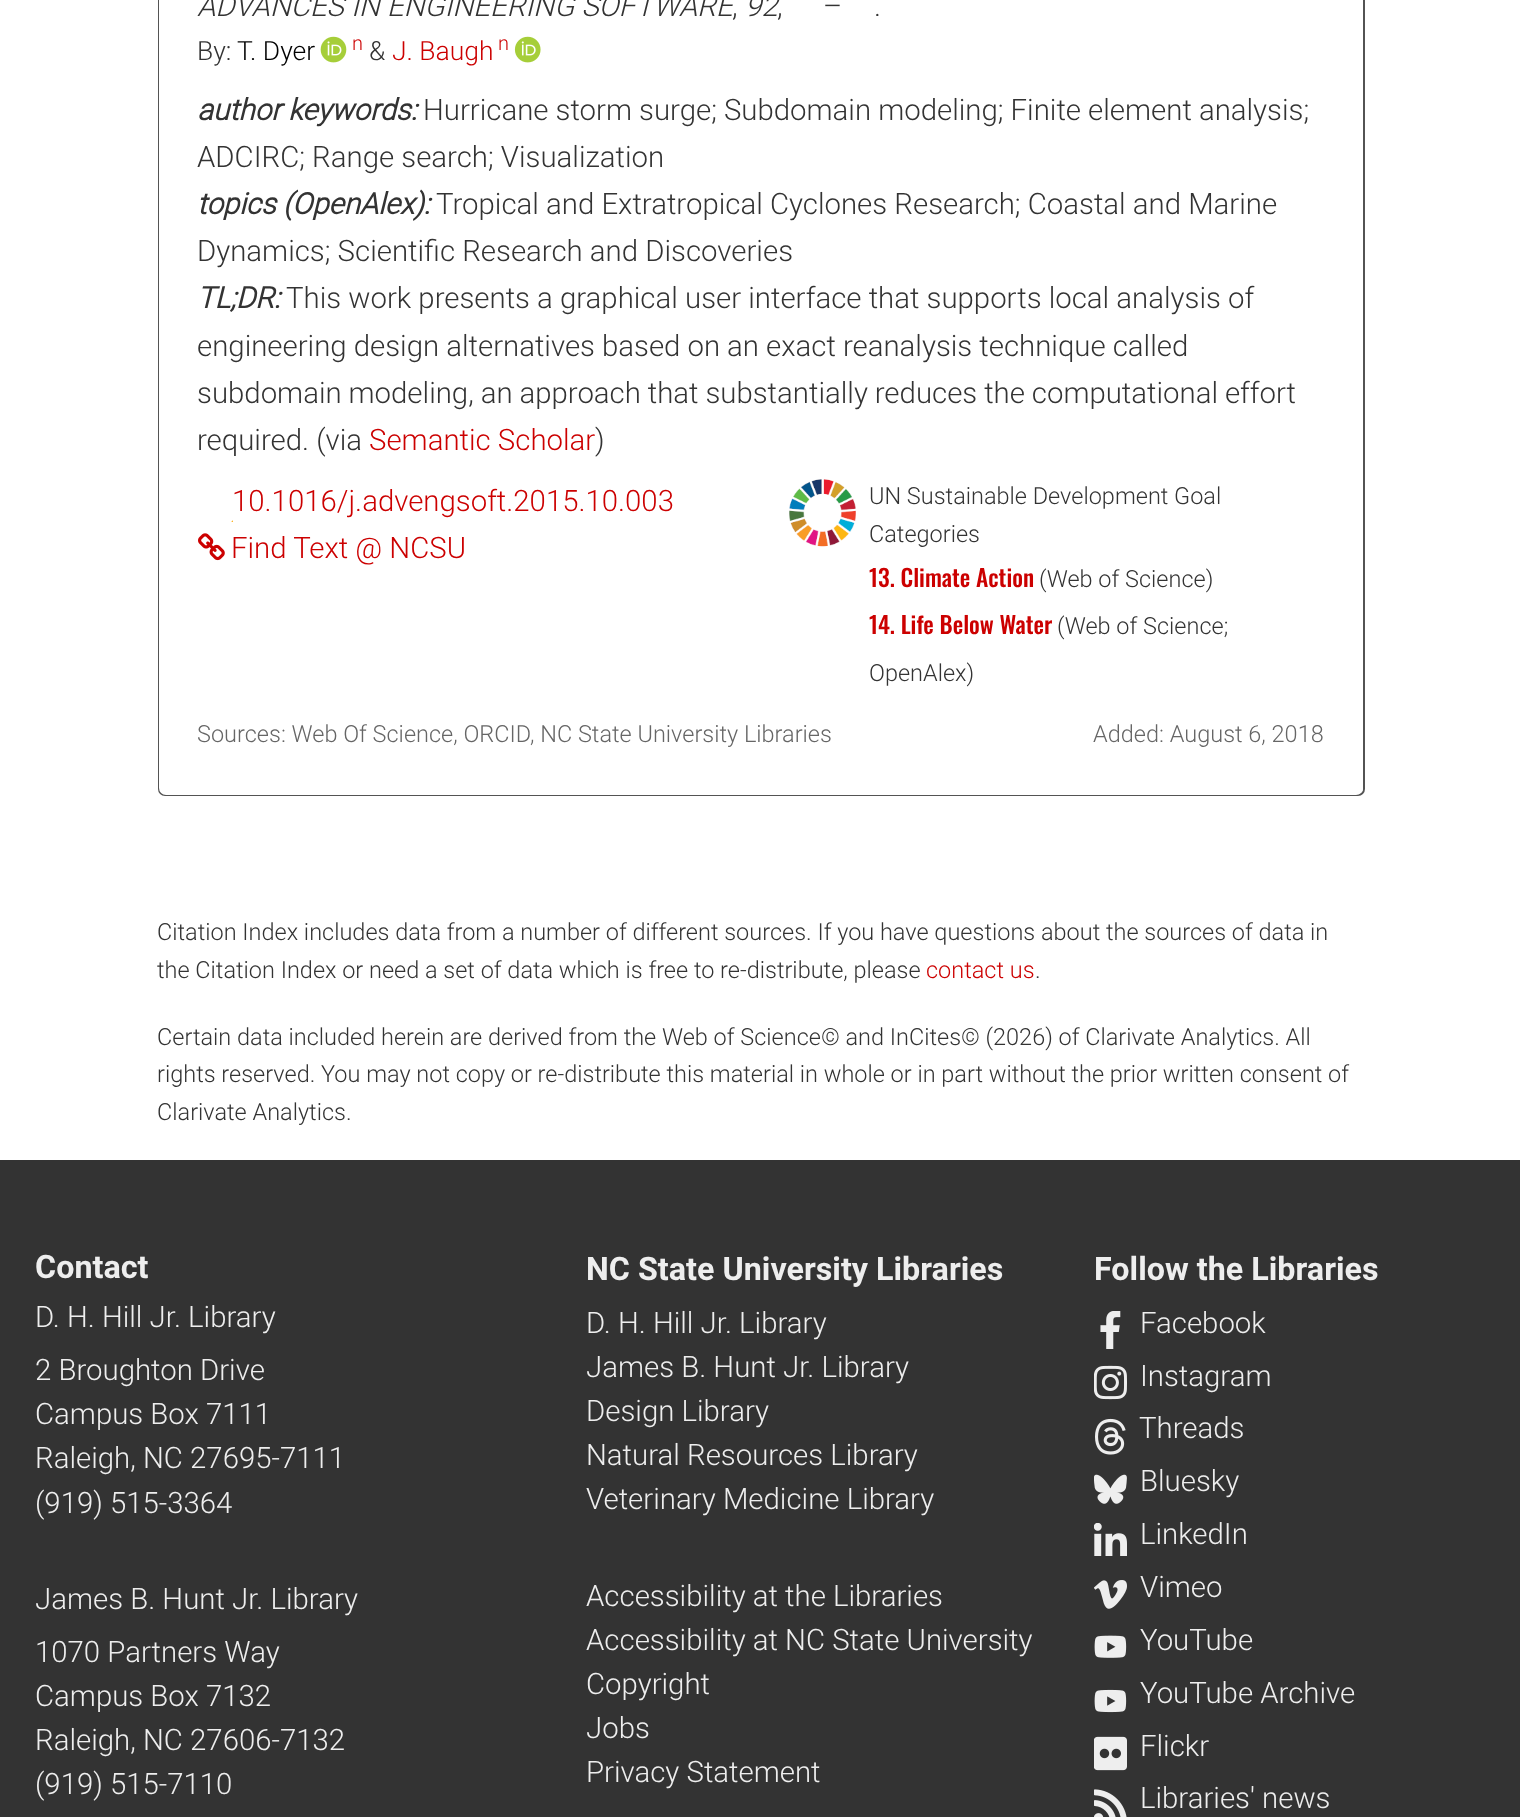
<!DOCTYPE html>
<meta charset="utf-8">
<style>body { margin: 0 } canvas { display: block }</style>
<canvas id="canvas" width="1520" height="1817"></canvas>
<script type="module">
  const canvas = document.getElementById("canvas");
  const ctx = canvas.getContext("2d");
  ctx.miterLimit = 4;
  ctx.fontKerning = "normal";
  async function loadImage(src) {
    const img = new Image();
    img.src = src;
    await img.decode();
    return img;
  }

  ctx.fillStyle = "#ffffff";
  ctx.fillRect(0, 0, 1520, 1817);
  ctx.beginPath();
  ctx.roundRect(159, -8, 1205, 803, 6);
  ctx.strokeStyle = "#535353";
  ctx.lineWidth = 2;
  ctx.stroke();
  ctx.beginPath();
  ctx.roundRect(159, -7, 1204, 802, 7);
  ctx.fill();
  ctx.font = "italic 300 29.4px Roboto";
  ctx.fillStyle = "#333333";
  ctx.fillText("ADVANCES IN ENGINEERING SOFTWARE", 197, 16);
  ctx.fillText("92", 745, 16);
  ctx.font = "300 29.4px Roboto";
  ctx.fillText("–", 823, 16);
  ctx.fillText(",", 732, 16);
  ctx.fillText(",", 777, 16);
  ctx.fillText(".", 874, 16);
  ctx.font = "300 26.5px Roboto";
  ctx.fillText("By:", 197, 60);
  ctx.fillStyle = "#000000";
  ctx.fillText("T. Dyer", 237, 60);
  ctx.drawImage(await loadImage("img1.png"), 320, 36, 27, 27);
  ctx.font = "300 20px Roboto";
  ctx.fillStyle = "#cc0000";
  ctx.fillText("n", 352, 50);
  ctx.font = "300 26.5px Roboto";
  ctx.fillStyle = "#333333";
  ctx.fillText("&", 369, 60);
  ctx.fillStyle = "#cc0000";
  ctx.fillText("J. Baugh", 392, 60);
  ctx.font = "300 20px Roboto";
  ctx.fillText("n", 498, 50);
  ctx.drawImage(await loadImage("img2.png"), 514, 36, 27, 27);
  ctx.font = "italic bold 29.4px Roboto";
  ctx.fillStyle = "#333333";
  ctx.fillText("author keywords:", 197, 120);
  ctx.wordSpacing = "-0.1px";
  ctx.font = "300 29.4px Roboto";
  ctx.fillText("Hurricane storm surge; Subdomain modeling; Finite element analysis;", 423, 120);
  ctx.wordSpacing = "0px";
  ctx.fillText("ADCIRC; Range search; Visualization", 197, 167);
  ctx.font = "italic bold 29.4px Roboto";
  ctx.fillText("topics (OpenAlex):", 197, 214);
  ctx.font = "300 29.4px Roboto";
  ctx.fillText("Tropical and Extratropical Cyclones Research; Coastal and Marine", 436, 214);
  ctx.fillText("Dynamics; Scientific Research and Discoveries", 197, 261);
  ctx.font = "italic bold 29.4px Roboto";
  ctx.fillText("TL;DR:", 197, 308);
  ctx.font = "300 29.4px Roboto";
  ctx.fillText("This work presents a graphical user interface that supports local analysis of", 286, 308);
  ctx.wordSpacing = "-0.1px";
  ctx.fillText("engineering design alternatives based on an exact reanalysis technique called", 197, 356);
  ctx.wordSpacing = "-0.25px";
  ctx.fillText("subdomain modeling, an approach that substantially reduces the computational effort", 197, 403);
  ctx.wordSpacing = "0px";
  ctx.fillText("required. (via", 197, 450);
  ctx.fillStyle = "#cc0000";
  ctx.fillText("Semantic Scholar", 369, 450);
  ctx.fillStyle = "#333333";
  ctx.fillText(")", 595, 450);
  ctx.fillStyle = "#cc0000";
  ctx.fillText("10.1016/j.advengsoft.2015.10.003", 232, 511);
  ctx.drawImage(await loadImage("img3.png"), 231, 520, 2, 2);
  ctx.drawImage(await loadImage("img4.png"), 198, 533, 27, 28);
  ctx.fillText("Find Text @ NCSU", 231, 558);
  ctx.drawImage(await loadImage("img5.png"), 789, 479, 67, 68);
  ctx.font = "300 23.52px Roboto";
  ctx.fillStyle = "#333333";
  ctx.fillText("UN Sustainable Development Goal", 869, 504);
  ctx.fillText("Categories", 869, 542);
  ctx.font = "500 23.52px Oswald";
  ctx.fillStyle = "#cc0000";
  ctx.fillText("13. Climate Action", 869, 587);
  ctx.font = "300 23.52px Roboto";
  ctx.fillStyle = "#333333";
  ctx.fillText("(Web of Science)", 1039, 587);
  ctx.font = "500 23.52px Oswald";
  ctx.fillStyle = "#cc0000";
  ctx.fillText("14. Life Below Water", 869, 634);
  ctx.font = "300 23.52px Roboto";
  ctx.fillStyle = "#333333";
  ctx.fillText("(Web of Science;", 1057, 634);
  ctx.fillText("OpenAlex)", 869, 681);
  ctx.fillStyle = "#666666";
  ctx.fillText("Sources: Web Of Science, ORCID, NC State University Libraries", 197, 742);
  ctx.fillText("Added: August 6, 2018", 1093, 742);
  ctx.fillStyle = "#333333";
  ctx.fillText("Citation Index includes data from a number of different sources. If you have questions about the sources of data in", 157, 940);
  ctx.fillText("the Citation Index or need a set of data which is free to re-distribute, please", 157, 978);
  ctx.fillStyle = "#cc0000";
  ctx.fillText("contact us", 926, 978);
  ctx.fillStyle = "#333333";
  ctx.fillText(".", 1035, 978);
  ctx.fillText("Certain data included herein are derived from the Web of Science© and InCites© (2026) of Clarivate Analytics. All", 157, 1045);
  ctx.fillText("rights reserved. You may not copy or re-distribute this material in whole or in part without the prior written consent of", 157, 1082);
  ctx.fillText("Clarivate Analytics.", 157, 1120);
  ctx.fillRect(0, 1160, 1520, 657);
  ctx.font = "bold 32.3px Roboto";
  ctx.fillStyle = "#eeeeee";
  ctx.fillText("Contact", 35, 1278);
  ctx.font = "300 29.4px Roboto";
  ctx.fillText("D. H. Hill Jr. Library", 35, 1327);
  ctx.fillText("2 Broughton Drive", 35, 1380);
  ctx.fillText("Campus Box 7111", 35, 1424);
  ctx.fillText("Raleigh, NC 27695-7111", 35, 1468);
  ctx.fillText("(919) 515-3364", 35, 1513);
  ctx.fillText("James B. Hunt Jr. Library", 35, 1609);
  ctx.fillText("1070 Partners Way", 35, 1662);
  ctx.fillText("Campus Box 7132", 35, 1706);
  ctx.fillText("Raleigh, NC 27606-7132", 35, 1750);
  ctx.fillText("(919) 515-7110", 35, 1794);
  ctx.font = "bold 32.3px Roboto";
  ctx.fillText("NC State University Libraries", 586, 1280);
  ctx.font = "300 29.4px Roboto";
  ctx.fillText("D. H. Hill Jr. Library", 586, 1333);
  ctx.fillText("James B. Hunt Jr. Library", 586, 1377);
  ctx.fillText("Design Library", 586, 1421);
  ctx.fillText("Natural Resources Library", 586, 1465);
  ctx.fillText("Veterinary Medicine Library", 586, 1509);
  ctx.fillText("Accessibility at the Libraries", 586, 1606);
  ctx.fillText("Accessibility at NC State University", 586, 1650);
  ctx.fillText("Copyright", 586, 1694);
  ctx.fillText("Jobs", 586, 1738);
  ctx.fillText("Privacy Statement", 586, 1782);
  ctx.font = "bold 32.3px Roboto";
  ctx.fillText("Follow the Libraries", 1094, 1280);
  ctx.drawImage(await loadImage("img6.png"), 1100, 1311, 21, 38);
  ctx.font = "300 29.4px Roboto";
  ctx.fillText("Facebook", 1140, 1333);
  ctx.drawImage(await loadImage("img7.png"), 1094, 1365, 33, 35);
  ctx.fillText("Instagram", 1140, 1386);
  ctx.drawImage(await loadImage("img8.png"), 1095, 1418, 31, 37);
  ctx.fillText("Threads", 1139, 1438);
  ctx.drawImage(await loadImage("img9.png"), 1094, 1474, 33, 30);
  ctx.fillText("Bluesky", 1140, 1491);
  ctx.drawImage(await loadImage("img10.png"), 1094, 1523, 33, 33);
  ctx.fillText("LinkedIn", 1140, 1544);
  ctx.drawImage(await loadImage("img11.png"), 1094, 1580, 33, 29);
  ctx.fillText("Vimeo", 1140, 1597);
  ctx.drawImage(await loadImage("img12.png"), 1094, 1635, 33, 23);
  ctx.fillText("YouTube", 1140, 1650);
  ctx.drawImage(await loadImage("img13.png"), 1094, 1689, 33, 24);
  ctx.fillText("YouTube Archive", 1140, 1703);
  ctx.drawImage(await loadImage("img14.png"), 1094, 1736, 33, 35);
  ctx.fillText("Flickr", 1140, 1756);
  ctx.drawImage(await loadImage("img15.png"), 1094, 1789, 33, 28);
  ctx.fillText("Libraries' news", 1140, 1808);
</script>
